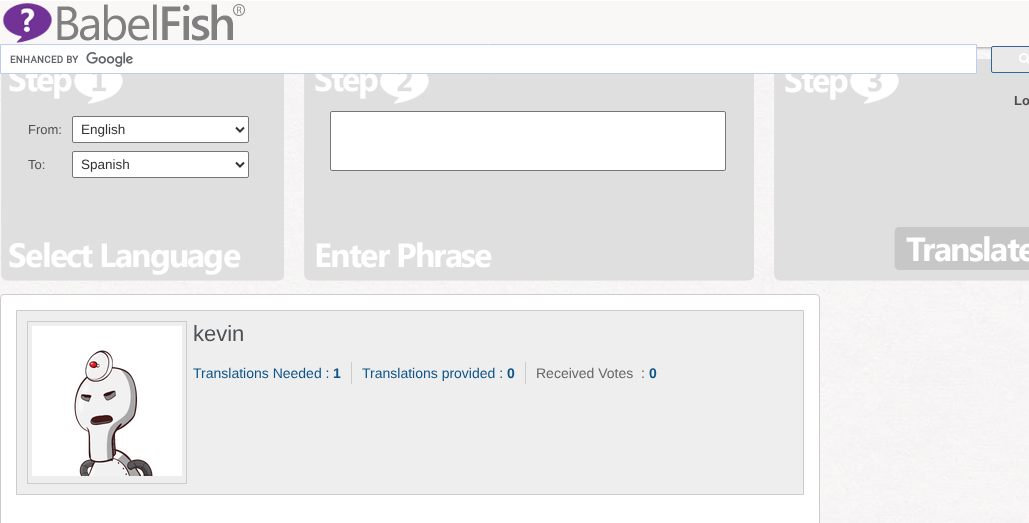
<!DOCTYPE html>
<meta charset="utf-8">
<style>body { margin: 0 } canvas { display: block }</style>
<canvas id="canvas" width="1029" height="523"></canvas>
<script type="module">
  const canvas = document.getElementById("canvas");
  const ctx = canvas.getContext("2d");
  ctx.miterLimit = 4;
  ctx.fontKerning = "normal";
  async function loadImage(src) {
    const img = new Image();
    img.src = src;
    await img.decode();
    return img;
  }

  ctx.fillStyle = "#ffffff";
  ctx.fillRect(0, 0, 1029, 523);
  ctx.drawImage(await loadImage("img1.png"), 0, 47, 1029, 476);
  ctx.fillStyle = "rgba(34, 25, 25, 0.4)";
  ctx.filter = "blur(1.5px)";
  ctx.beginPath();
  ctx.rect(0, 1, 1029, 47);
  ctx.fill();
  ctx.filter = "none";
  ctx.fillStyle = "#faf7f7";
  ctx.fillRect(0, 1, 1029, 46);
  ctx.fillStyle = "#ffffff";
  ctx.fillRect(0, 0, 1029, 1);
  ctx.drawImage(await loadImage("img2.png"), 3, 3, 242, 40);
  ctx.drawImage(await loadImage("img7.png"), 774, 59, 255, 222);
  ctx.beginPath();
  ctx.rect(0.5, 44.5, 976, 29);
  ctx.fill();
  ctx.strokeStyle = "#bccdf0";
  ctx.stroke();
  ctx.drawImage(await loadImage("img3.png"), 10, 52, 123, 15);
  ctx.fillStyle = "#e9e9e9";
  ctx.beginPath();
  ctx.roundRect(991.5, 46.5, 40, 26, 1.5);
  ctx.fill();
  ctx.strokeStyle = "#336699";
  ctx.stroke();
  ctx.drawImage(await loadImage("img4.png"), 1019, 53, 10, 11);
  ctx.font = "bold 13px Liberation Sans";
  ctx.fillStyle = "#524d4d";
  ctx.fillText("Lo", 1014, 105);
  ctx.drawImage(await loadImage("img5.png"), 1, 74, 283, 207);
  ctx.font = "13px Liberation Sans";
  ctx.fillStyle = "#4c5155";
  ctx.fillText("From:", 28, 134);
  ctx.fillStyle = "#ffffff";
  ctx.beginPath();
  ctx.roundRect(72.5, 116.5, 176, 26, 1.5);
  ctx.fill();
  ctx.strokeStyle = "#767676";
  ctx.stroke();
  ctx.beginPath();
  ctx.moveTo(236, 127.5);
  ctx.lineTo(240, 131.5);
  ctx.lineTo(244, 127.5);
  ctx.strokeStyle = "#333333";
  ctx.lineWidth = 2;
  ctx.stroke();
  ctx.font = "13.5px Liberation Sans";
  ctx.fillStyle = "#333333";
  ctx.fillText("English", 81, 134);
  ctx.font = "13px Liberation Sans";
  ctx.fillStyle = "#4c5155";
  ctx.fillText("To:", 28, 169);
  ctx.fillStyle = "#ffffff";
  ctx.beginPath();
  ctx.roundRect(72.5, 151.5, 176, 26, 1.5);
  ctx.fill();
  ctx.strokeStyle = "#767676";
  ctx.lineWidth = 1;
  ctx.stroke();
  ctx.beginPath();
  ctx.moveTo(236, 162.5);
  ctx.lineTo(240, 166.5);
  ctx.lineTo(244, 162.5);
  ctx.strokeStyle = "#333333";
  ctx.lineWidth = 2;
  ctx.stroke();
  ctx.font = "13.5px Liberation Sans";
  ctx.fillStyle = "#333333";
  ctx.fillText("Spanish", 81, 169);
  ctx.drawImage(await loadImage("img6.png"), 304, 74, 450, 207);
  ctx.fillStyle = "#ffffff";
  ctx.beginPath();
  ctx.roundRect(330.5, 111.5, 395, 59, 1.5);
  ctx.fill();
  ctx.strokeStyle = "#767676";
  ctx.lineWidth = 1;
  ctx.stroke();
  ctx.drawImage(await loadImage("img8.png"), 894, 227, 135, 43);
  ctx.beginPath();
  ctx.roundRect(0.5, 294.5, 819, 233, 3.5);
  ctx.fill();
  ctx.strokeStyle = "#cccccc";
  ctx.stroke();
  ctx.fillStyle = "#eeeeee";
  ctx.beginPath();
  ctx.rect(16.5, 310.5, 787, 184);
  ctx.fill();
  ctx.stroke();
  ctx.strokeRect(27.5, 321.5, 159, 162);
  ctx.fillStyle = "#ffffff";
  ctx.fillRect(32, 326, 150, 150);
  ctx.drawImage(await loadImage("img9.png"), 74, 350, 79, 126);
  ctx.font = "22px Liberation Sans";
  ctx.fillStyle = "#4c5155";
  ctx.fillText("kevin", 193, 341);
  ctx.fillStyle = "#cccccc";
  ctx.fillRect(351, 362, 1, 22);
  ctx.font = "14px Liberation Sans";
  ctx.fillStyle = "#0d5488";
  ctx.fillText("Translations Needed :", 193, 378);
  ctx.font = "bold 14px Liberation Sans";
  ctx.fillText("1", 333, 378);
  ctx.fillStyle = "#cccccc";
  ctx.fillRect(525, 362, 1, 22);
  ctx.font = "14px Liberation Sans";
  ctx.fillStyle = "#0d5488";
  ctx.fillText("Translations provided :", 362, 378);
  ctx.font = "bold 14px Liberation Sans";
  ctx.fillText("0", 507, 378);
  ctx.font = "14px Liberation Sans";
  ctx.fillStyle = "#666666";
  ctx.fillText("Received Votes  :", 536, 378);
  ctx.font = "bold 14px Liberation Sans";
  ctx.fillStyle = "#0d5488";
  ctx.fillText("0", 649, 378);
</script>
